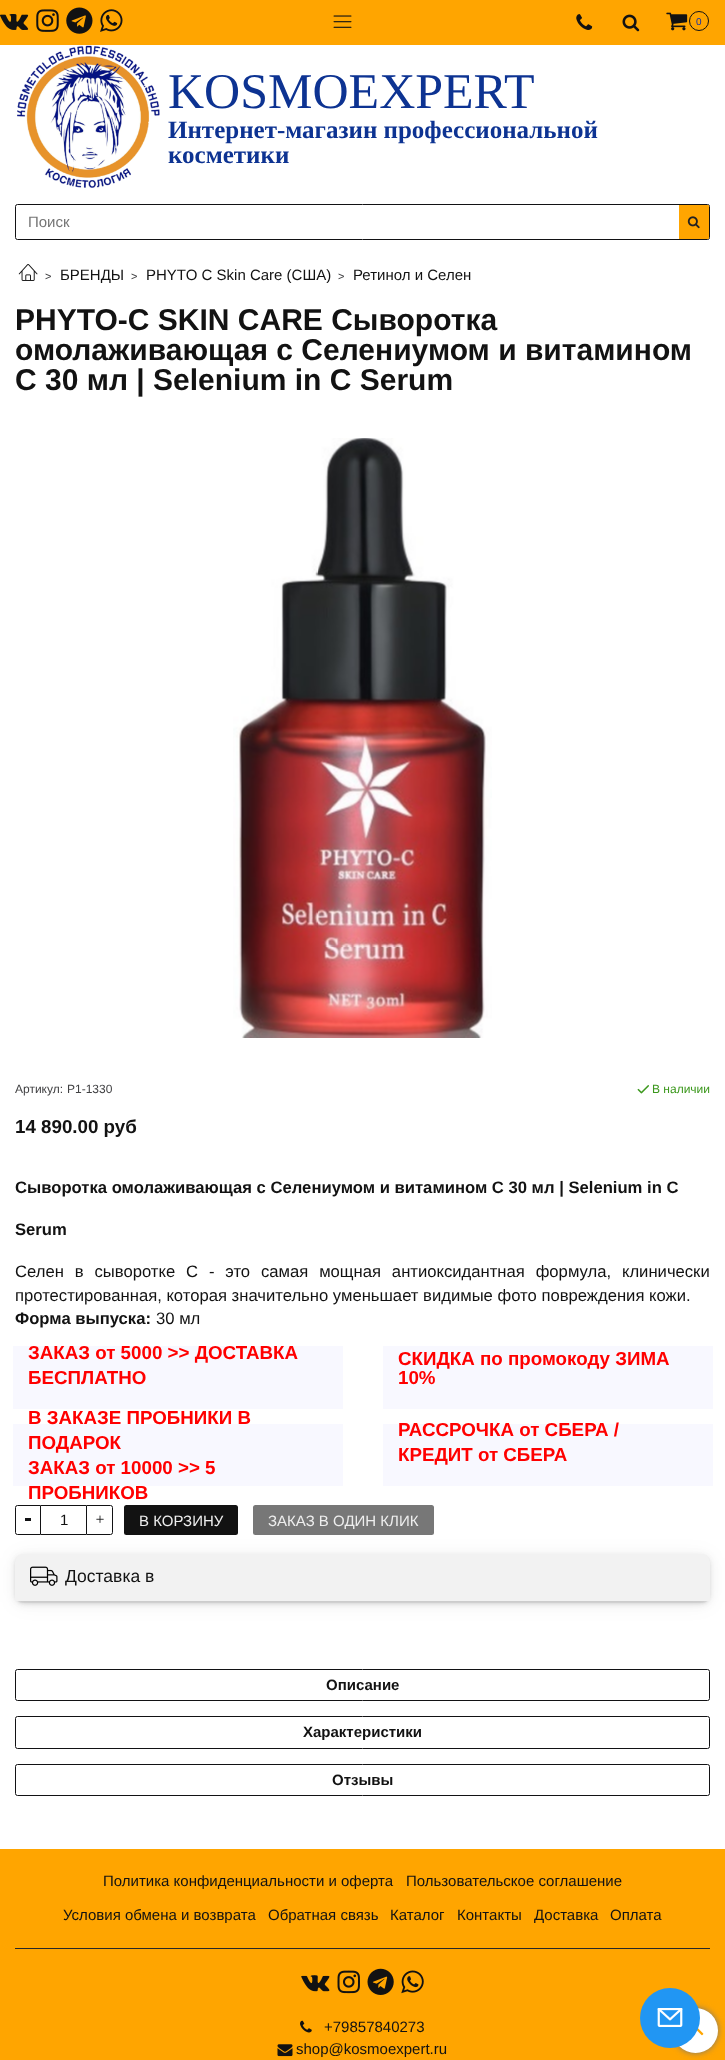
<!DOCTYPE html>
<meta charset="utf-8">
<style>body { margin: 0 } canvas { display: block }</style>
<canvas id="canvas" width="725" height="2060"></canvas>
<script type="module">
  const canvas = document.getElementById("canvas");
  const ctx = canvas.getContext("2d");
  ctx.miterLimit = 4;
  ctx.fontKerning = "normal";
  async function loadImage(src) {
    const img = new Image();
    img.src = src;
    await img.decode();
    return img;
  }

  ctx.fillStyle = "#ffffff";
  ctx.fillRect(0, 0, 725, 2060);
  ctx.fillStyle = "#ffa500";
  ctx.fillRect(0, 0, 725, 45);
  ctx.drawImage(await loadImage("img1.png"), 0, 14, 29, 16);
  ctx.drawImage(await loadImage("img2.png"), 36, 9, 23, 23);
  ctx.drawImage(await loadImage("img3.png"), 66, 7, 27, 27);
  ctx.drawImage(await loadImage("img4.png"), 100, 9, 23, 23);
  ctx.drawImage(await loadImage("img5.png"), 333, 15, 19, 13);
  ctx.drawImage(await loadImage("img6.png"), 576, 14, 17, 16);
  ctx.drawImage(await loadImage("img7.png"), 622, 14, 18, 18);
  ctx.drawImage(await loadImage("img8.png"), 666, 12, 22, 19);
  ctx.beginPath();
  ctx.arc(699, 21, 9.5, 0, Math.PI * 2);
  ctx.strokeStyle = "#121212";
  ctx.stroke();
  ctx.font = "10px Liberation Sans";
  ctx.fillStyle = "#122faa";
  ctx.fillText("0", 696, 25);
  ctx.drawImage(await loadImage("img9.png"), 17, 45, 143, 143);
  ctx.font = "50px Liberation Serif";
  ctx.fillStyle = "#0d3392";
  ctx.fillText("KOSMOEXPERT", 168, 108);
  ctx.font = "bold 25px Liberation Serif";
  ctx.fillText("Интернет-магазин профессиональной", 168, 138);
  ctx.fillText("косметики", 168, 163);
  ctx.beginPath();
  ctx.roundRect(15.5, 204.5, 694, 35, 2);
  ctx.strokeStyle = "#121214";
  ctx.stroke();
  ctx.font = "15px Liberation Sans";
  ctx.fillStyle = "#757575";
  ctx.fillText("Поиск", 28, 227);
  ctx.fillStyle = "#ffa500";
  ctx.beginPath();
  ctx.roundRect(679, 205, 30, 34, [0, 1, 1, 0]);
  ctx.fill();
  ctx.drawImage(await loadImage("img10.png"), 687, 216, 13, 13);
  ctx.drawImage(await loadImage("img11.png"), 18, 264, 20, 17);
  ctx.font = "11px Liberation Sans";
  ctx.fillStyle = "#414143";
  ctx.fillText(">", 45, 280);
  ctx.font = "15px Liberation Sans";
  ctx.fillStyle = "#121212";
  ctx.fillText("БРЕНДЫ", 60, 280);
  ctx.font = "11px Liberation Sans";
  ctx.fillStyle = "#414143";
  ctx.fillText(">", 131, 280);
  ctx.font = "15px Liberation Sans";
  ctx.fillStyle = "#121212";
  ctx.fillText("PHYTO C Skin Care (США)", 146, 280);
  ctx.font = "11px Liberation Sans";
  ctx.fillStyle = "#414143";
  ctx.fillText(">", 338, 280);
  ctx.font = "15px Liberation Sans";
  ctx.fillStyle = "#121212";
  ctx.fillText("Ретинол и Селен", 353, 280);
  ctx.font = "bold 30px Liberation Sans";
  ctx.fillText("PHYTO-C SKIN CARE Сыворотка", 15, 330);
  ctx.fillText("омолаживающая с Селениумом и витамином", 15, 360);
  ctx.fillText("C 30 мл | Selenium in C Serum", 15, 390);
  ctx.drawImage(await loadImage("img12.png"), 233, 438, 259, 600);
  ctx.font = "12px Liberation Sans";
  ctx.fillStyle = "#414143";
  ctx.fillText("Артикул:", 15, 1093);
  ctx.fillText("P1-1330", 67, 1093);
  ctx.drawImage(await loadImage("img13.png"), 637, 1085, 12, 9);
  ctx.fillStyle = "#3c981d";
  ctx.fillText("В наличии", 652, 1093);
  ctx.font = "bold 18.75px Liberation Sans";
  ctx.fillStyle = "#121212";
  ctx.fillText("14 890.00 руб", 15, 1133);
  ctx.font = "bold 16.65px Liberation Sans";
  ctx.fillText("Сыворотка омолаживающая с Селениумом и витамином C 30 мл | Selenium in C", 15, 1193);
  ctx.fillText("Serum", 15, 1235);
  ctx.wordSpacing = "6.25px";
  ctx.font = "16.65px Liberation Sans";
  ctx.fillText("Селен в сыворотке С - это самая мощная антиоксидантная формула, клинически", 15, 1277);
  ctx.wordSpacing = "0px";
  ctx.fillText("протестированная, которая значительно уменьшает видимые фото повреждения кожи.", 15, 1301);
  ctx.font = "bold 16.65px Liberation Sans";
  ctx.fillText("Форма выпуска:", 15, 1324);
  ctx.font = "16.65px Liberation Sans";
  ctx.fillText("30 мл", 156, 1324);
  ctx.fillStyle = "#f8f8ff";
  ctx.fillRect(13, 1346, 330, 63);
  ctx.font = "bold 18.75px Liberation Sans";
  ctx.fillStyle = "#ff0000";
  ctx.fillText("ЗАКАЗ от 5000 >> ДОСТАВКА", 28, 1359);
  ctx.fillText("БЕСПЛАТНО", 28, 1384);
  ctx.fillStyle = "#f8f8ff";
  ctx.fillRect(383, 1346, 330, 63);
  ctx.fillStyle = "#ff0000";
  ctx.fillText("СКИДКА по промокоду ЗИМА", 398, 1365);
  ctx.fillText("10%", 398, 1384);
  ctx.fillStyle = "#f8f8ff";
  ctx.fillRect(13, 1424, 330, 62);
  ctx.fillStyle = "#ff0000";
  ctx.fillText("В ЗАКАЗЕ ПРОБНИКИ В", 28, 1424);
  ctx.fillText("ПОДАРОК", 28, 1449);
  ctx.fillText("ЗАКАЗ от 10000 >> 5", 28, 1474);
  ctx.fillText("ПРОБНИКОВ", 28, 1499);
  ctx.fillStyle = "#f8f8ff";
  ctx.fillRect(383, 1424, 330, 62);
  ctx.fillStyle = "#ff0000";
  ctx.fillText("РАССРОЧКА от СБЕРА /", 398, 1436);
  ctx.fillText("КРЕДИТ от СБЕРА", 398, 1461);
  ctx.fillStyle = "rgba(0, 0, 0, 0.05)";
  ctx.filter = "blur(10px)";
  ctx.beginPath();
  ctx.roundRect(15, 1556, 695, 48, 8);
  ctx.fill();
  ctx.filter = "none";
  ctx.beginPath();
  ctx.roundRect(15.5, 1505.5, 25, 29, [2, 0, 0, 2]);
  ctx.stroke();
  ctx.fillStyle = "#121214";
  ctx.fillRect(25, 1518, 6, 3);
  ctx.fillRect(41, 1505, 45, 1);
  ctx.fillRect(41, 1534, 45, 1);
  ctx.font = "15px Liberation Sans";
  ctx.fillStyle = "#121212";
  ctx.fillText("1", 60, 1525);
  ctx.beginPath();
  ctx.roundRect(86.5, 1505.5, 26, 29, [0, 2, 2, 0]);
  ctx.stroke();
  ctx.drawImage(await loadImage("img14.png"), 96, 1515, 8, 8);
  ctx.beginPath();
  ctx.roundRect(124, 1505, 114, 30, 2.5);
  ctx.fill();
  ctx.fillStyle = "#eeeeee";
  ctx.fillText("В КОРЗИНУ", 139, 1526);
  ctx.fillStyle = "#777777";
  ctx.beginPath();
  ctx.roundRect(253, 1505, 181, 30, 2.5);
  ctx.fill();
  ctx.fillStyle = "#eeeeee";
  ctx.fillText("ЗАКАЗ В ОДИН КЛИК", 268, 1526);
  ctx.fillStyle = "rgba(0, 0, 0, 0.05)";
  ctx.filter = "blur(5px)";
  ctx.beginPath();
  ctx.roundRect(15, 1556, 695, 48, 8);
  ctx.fill();
  ctx.filter = "none";
  ctx.filter = "blur(2.5px)";
  ctx.beginPath();
  ctx.roundRect(15, 1556, 695, 48, 8);
  ctx.fill();
  ctx.filter = "none";
  ctx.filter = "blur(1px)";
  ctx.beginPath();
  ctx.roundRect(15, 1556, 695, 48, 8);
  ctx.fill();
  ctx.filter = "none";
  ctx.filter = "blur(0.5px)";
  ctx.beginPath();
  ctx.roundRect(15, 1555, 695, 48, 8);
  ctx.fill();
  ctx.filter = "none";
  ctx.fillStyle = "#f2f2f2";
  ctx.beginPath();
  ctx.roundRect(15, 1554, 695, 47, [8, 8, 0, 0]);
  ctx.fill();
  ctx.drawImage(await loadImage("img15.png"), 30, 1566, 28, 20);
  ctx.font = "17.5px Liberation Sans";
  ctx.fillStyle = "#121212";
  ctx.fillText("Доставка в", 65, 1582);
  ctx.beginPath();
  ctx.roundRect(15.5, 1669.5, 694, 31, 2);
  ctx.stroke();
  ctx.font = "bold 15px Liberation Sans";
  ctx.fillText("Описание", 326, 1690);
  ctx.beginPath();
  ctx.roundRect(15.5, 1716.5, 694, 32, 2);
  ctx.stroke();
  ctx.fillText("Характеристики", 303, 1737);
  ctx.beginPath();
  ctx.roundRect(15.5, 1764.5, 694, 31, 2);
  ctx.stroke();
  ctx.fillText("Отзывы", 332, 1785);
  ctx.fillStyle = "#ffa500";
  ctx.fillRect(0, 1849, 725, 211);
  ctx.fillStyle = "#282828";
  ctx.fillRect(15, 1948, 695, 1);
  ctx.font = "15px Liberation Sans";
  ctx.fillStyle = "#121212";
  ctx.fillText("Политика конфиденциальности и оферта", 103, 1886);
  ctx.fillText("Пользовательское соглашение", 406, 1886);
  ctx.fillText("Условия обмена и возврата", 63, 1920);
  ctx.fillText("Обратная связь", 268, 1920);
  ctx.fillText("Каталог", 390, 1920);
  ctx.fillText("Контакты", 457, 1920);
  ctx.fillText("Доставка", 534, 1920);
  ctx.fillText("Оплата", 610, 1920);
  ctx.drawImage(await loadImage("img16.png"), 301, 1975, 29, 17);
  ctx.drawImage(await loadImage("img17.png"), 337, 1970, 23, 24);
  ctx.drawImage(await loadImage("img18.png"), 367, 1968, 27, 27);
  ctx.drawImage(await loadImage("img19.png"), 401, 1970, 23, 24);
  ctx.drawImage(await loadImage("img20.png"), 300, 2020, 12, 13);
  ctx.fillText("+79857840273", 324, 2032);
  ctx.drawImage(await loadImage("img21.png"), 277, 2044, 16, 13);
  ctx.fillText("shop@kosmoexpert.ru", 296, 2054);
  ctx.fillStyle = "#777777";
  ctx.filter = "blur(3px)";
  ctx.beginPath();
  ctx.roundRect(673, 2008, 45, 45, 22.5);
  ctx.fill();
  ctx.filter = "none";
  ctx.fillStyle = "#ffffff";
  ctx.beginPath();
  ctx.arc(695.5, 2030.5, 22.5, 0, Math.PI * 2);
  ctx.fill();
  ctx.drawImage(await loadImage("img22.png"), 697, 2028, 7, 8);
  ctx.fillStyle = "#2196f3";
  ctx.beginPath();
  ctx.arc(670, 2018, 30, 0, Math.PI * 2);
  ctx.fill();
  ctx.drawImage(await loadImage("img23.png"), 657, 2008, 26, 19);
</script>
